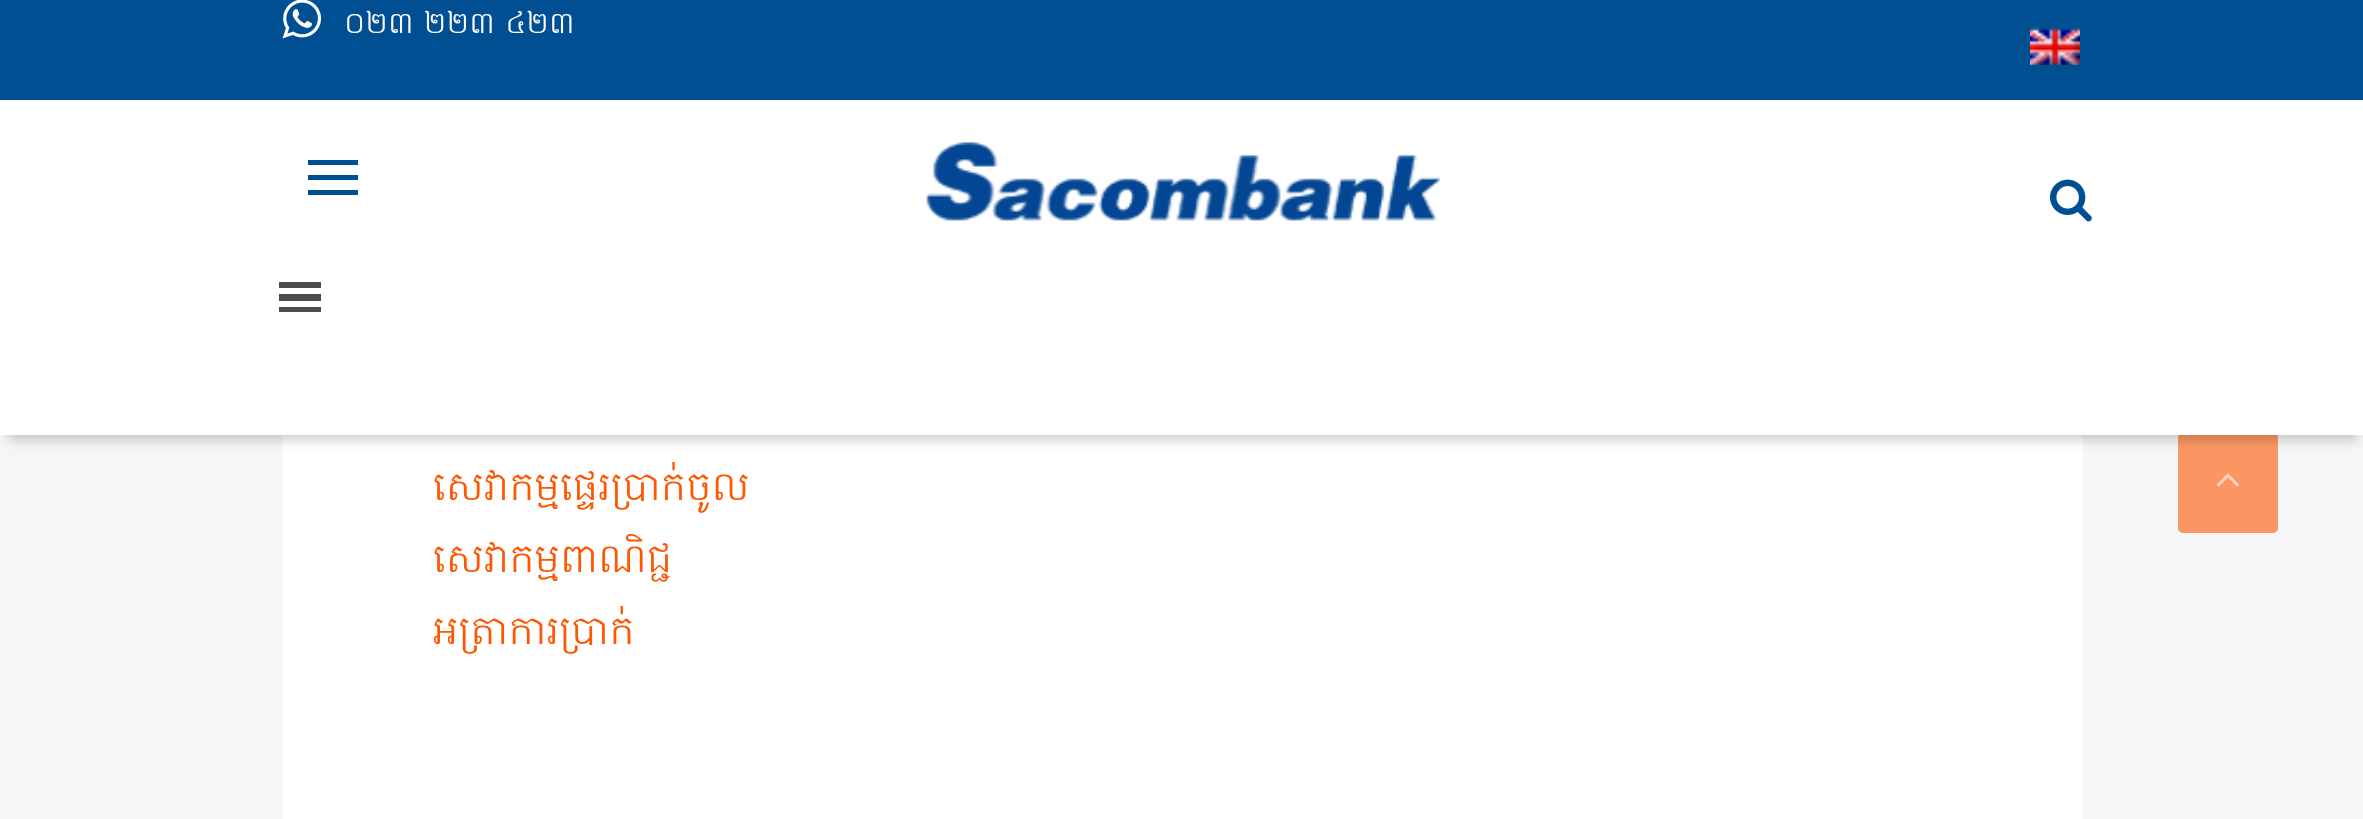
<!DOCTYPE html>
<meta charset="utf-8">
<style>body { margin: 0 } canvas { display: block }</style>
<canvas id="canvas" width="2363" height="819"></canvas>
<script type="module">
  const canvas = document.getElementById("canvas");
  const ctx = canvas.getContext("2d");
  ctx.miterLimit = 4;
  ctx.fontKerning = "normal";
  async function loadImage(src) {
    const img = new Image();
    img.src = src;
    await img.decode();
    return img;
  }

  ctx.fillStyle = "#f4f6f8";
  ctx.fillRect(0, 0, 2363, 819);
  ctx.fillStyle = "#004f93";
  ctx.fillRect(0, 0, 2363, 100);
  ctx.drawImage(await loadImage("img1.png"), 282, 0, 40, 39);
  ctx.font = "300 30px Hanuman";
  ctx.fillStyle = "#ffffff";
  ctx.fillText("០២៣ ២២៣ ៤២៣", 344, 33);
  ctx.drawImage(await loadImage("img2.png"), 2030, 27, 50, 38);
  ctx.fillRect(283, 435, 1800, 384);
  ctx.fillStyle = "#fb9663";
  ctx.beginPath();
  ctx.roundRect(2178, 433, 100, 100, 5);
  ctx.fill();
  ctx.fillStyle = "rgba(0, 0, 0, 0.2)";
  ctx.filter = "blur(6px)";
  ctx.beginPath();
  ctx.rect(8, 120, 2350, 320);
  ctx.fill();
  ctx.filter = "none";
  ctx.fillStyle = "#ffffff";
  ctx.fillRect(0, 100, 2363, 335);
  ctx.fillStyle = "#004f93";
  ctx.fillRect(308, 160, 50, 5);
  ctx.fillRect(308, 175, 50, 5);
  ctx.fillRect(308, 190, 50, 5);
  ctx.fillStyle = "#4d4d4d";
  ctx.beginPath();
  ctx.moveTo(279, 312);
  ctx.lineTo(321, 312);
  ctx.lineTo(321, 307);
  ctx.lineTo(279, 307);
  ctx.closePath();
  ctx.moveTo(279, 282);
  ctx.lineTo(279, 288);
  ctx.lineTo(321, 288);
  ctx.lineTo(321, 282);
  ctx.closePath();
  ctx.moveTo(279, 301);
  ctx.lineTo(321, 301);
  ctx.lineTo(321, 294);
  ctx.lineTo(279, 294);
  ctx.closePath();
  ctx.fill();
  ctx.drawImage(await loadImage("img3.png"), 926, 142, 514, 79);
  ctx.drawImage(await loadImage("img4.png"), 2050, 179, 42, 43);
  ctx.font = "300 40px Hanuman";
  ctx.fillStyle = "#ff5600";
  ctx.fillText("សេវាកម្មផ្ទេរប្រាក់ចូល", 433, 500);
  ctx.fillText("សេវាកម្មពាណិជ្ជ", 433, 572);
  ctx.fillText("អត្រាការប្រាក់", 433, 644);
  ctx.drawImage(await loadImage("img5.png"), 2216, 473, 23, 14);
</script>
